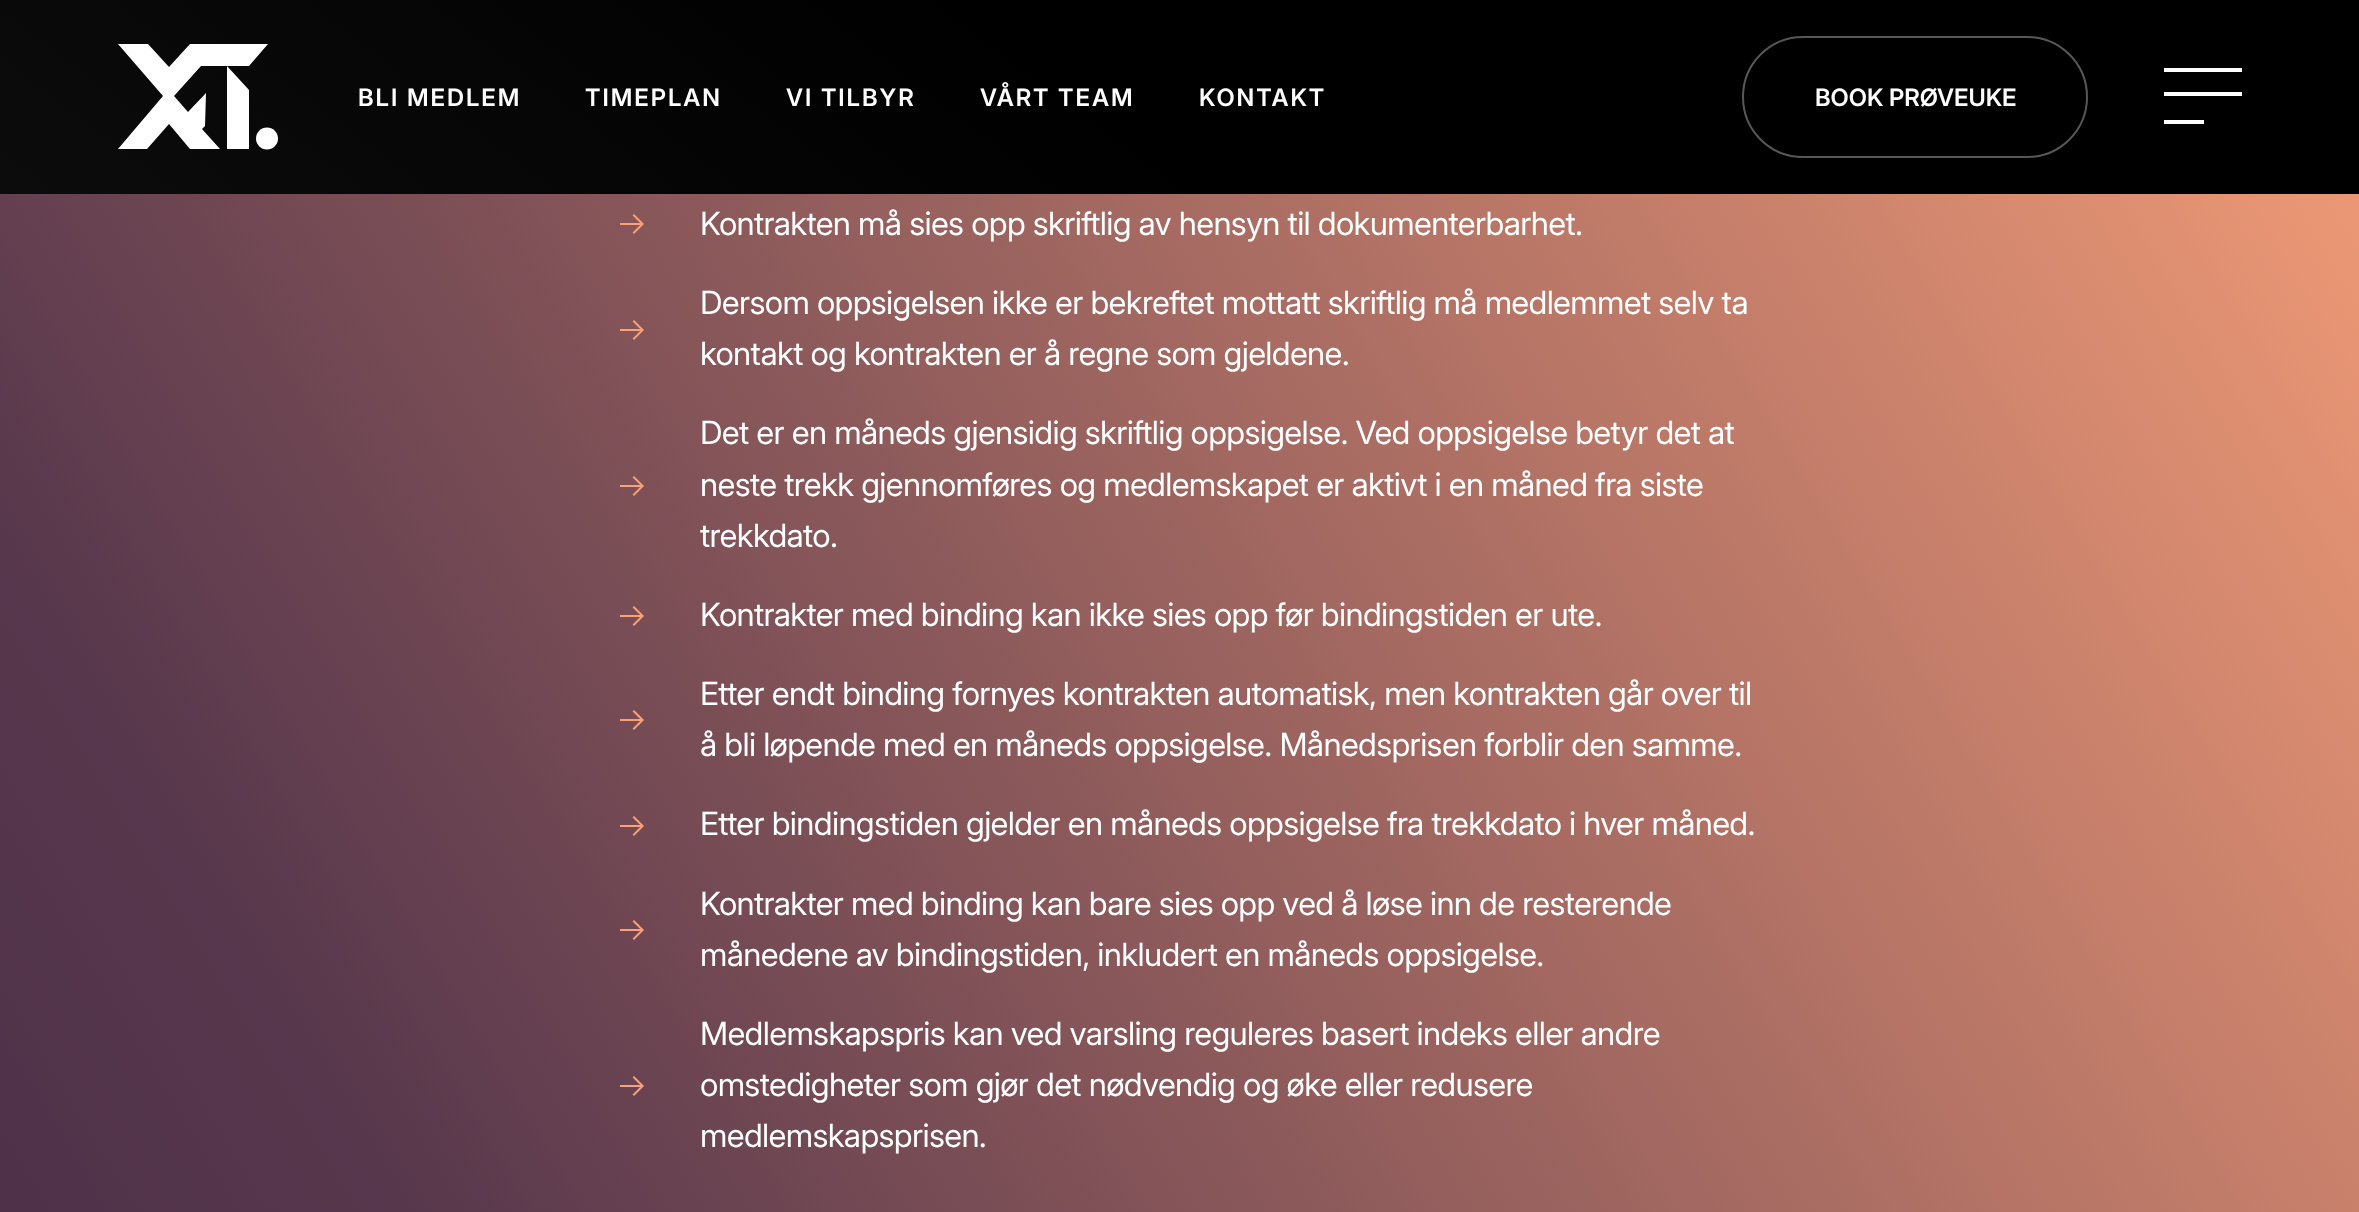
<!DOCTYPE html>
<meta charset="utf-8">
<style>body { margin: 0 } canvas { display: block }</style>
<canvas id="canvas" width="2359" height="1212"></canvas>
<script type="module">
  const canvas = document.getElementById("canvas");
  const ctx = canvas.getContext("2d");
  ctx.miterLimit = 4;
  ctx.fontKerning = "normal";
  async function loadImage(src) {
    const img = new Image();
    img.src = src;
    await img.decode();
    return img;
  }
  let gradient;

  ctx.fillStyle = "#ffffff";
  ctx.fillRect(0, 0, 2359, 1212);
  gradient = ctx.createLinearGradient(1654, -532, 706, 726);
  gradient.addColorStop(0.54, "#000000");
  gradient.addColorStop(1, "#0c0c0c");
  ctx.fillStyle = gradient;
  ctx.fillRect(0, 0, 2359, 194);
  ctx.fillStyle = "#ffffff";
  ctx.beginPath();
  ctx.arc(267, 138.5, 11, 0, Math.PI * 2);
  ctx.fill();
  ctx.beginPath();
  ctx.moveTo(268, 44);
  ctx.lineTo(190, 44);
  ctx.lineTo(169, 67);
  ctx.lineTo(148, 44);
  ctx.lineTo(118, 44);
  ctx.lineTo(163, 96);
  ctx.lineTo(118, 149);
  ctx.lineTo(147, 149);
  ctx.lineTo(169, 124);
  ctx.lineTo(190, 149);
  ctx.lineTo(220, 149);
  ctx.lineTo(202, 129);
  ctx.lineTo(205, 126);
  ctx.lineTo(206, 93);
  ctx.lineTo(188, 112);
  ctx.lineTo(174, 96);
  ctx.lineTo(201, 66);
  ctx.lineTo(227, 66);
  ctx.lineTo(227, 149);
  ctx.lineTo(249, 149);
  ctx.lineTo(249, 90);
  ctx.lineTo(227, 66);
  ctx.lineTo(249, 66);
  ctx.closePath();
  ctx.fill();
  ctx.letterSpacing = "2px";
  ctx.font = "600 24px Inter";
  ctx.fillText("BLI MEDLEM", 358, 106);
  ctx.fillText("TIMEPLAN", 585, 106);
  ctx.fillText("VI TILBYR", 786, 106);
  ctx.fillText("VÅRT TEAM", 980, 106);
  ctx.fillText("KONTAKT", 1199, 106);
  ctx.beginPath();
  ctx.roundRect(1743, 37, 344, 120, 60);
  ctx.strokeStyle = "#575757";
  ctx.lineWidth = 2;
  ctx.stroke();
  ctx.letterSpacing = "0px";
  ctx.fillText("BOOK PRØVEUKE", 1815, 106);
  ctx.fillRect(2164, 68, 78, 4);
  ctx.fillRect(2164, 92, 78, 4);
  ctx.fillRect(2164, 120, 40, 4);
  gradient = ctx.createLinearGradient(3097, 1015, -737, 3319);
  gradient.addColorStop(0, "#faa179");
  gradient.addColorStop(0.54, "#57374c");
  gradient.addColorStop(0.97, "#26173f");
  ctx.fillStyle = gradient;
  ctx.fillRect(0, 194, 2359, 1018);
  ctx.drawImage(await loadImage("img1.png"), 620, 214, 24, 20);
  ctx.letterSpacing = "-0.65px";
  ctx.font = "32px Inter";
  ctx.fillStyle = "#ffffff";
  ctx.fillText("Kontrakten må sies opp skriftlig av hensyn til dokumenterbarhet.", 700, 235);
  ctx.drawImage(await loadImage("img2.png"), 620, 320, 24, 20);
  ctx.fillText("Dersom oppsigelsen ikke er bekreftet mottatt skriftlig må medlemmet selv ta", 700, 314);
  ctx.fillText("kontakt og kontrakten er å regne som gjeldene.", 700, 365);
  ctx.drawImage(await loadImage("img3.png"), 620, 476, 24, 20);
  ctx.fillText("Det er en måneds gjensidig skriftlig oppsigelse. Ved oppsigelse betyr det at", 700, 444);
  ctx.fillText("neste trekk gjennomføres og medlemskapet er aktivt i en måned fra siste", 700, 496);
  ctx.fillText("trekkdato.", 700, 547);
  ctx.drawImage(await loadImage("img4.png"), 620, 606, 24, 20);
  ctx.fillText("Kontrakter med binding kan ikke sies opp før bindingstiden er ute.", 700, 626);
  ctx.drawImage(await loadImage("img5.png"), 620, 710, 24, 20);
  ctx.fillText("Etter endt binding fornyes kontrakten automatisk, men kontrakten går over til", 700, 705);
  ctx.fillText("å bli løpende med en måneds oppsigelse. Månedsprisen forblir den samme.", 700, 756);
  ctx.drawImage(await loadImage("img6.png"), 620, 816, 24, 20);
  ctx.fillText("Etter bindingstiden gjelder en måneds oppsigelse fra trekkdato i hver måned.", 700, 835);
  ctx.drawImage(await loadImage("img7.png"), 620, 920, 24, 20);
  ctx.fillText("Kontrakter med binding kan bare sies opp ved å løse inn de resterende", 700, 915);
  ctx.fillText("månedene av bindingstiden, inkludert en måneds oppsigelse.", 700, 966);
  ctx.drawImage(await loadImage("img8.png"), 620, 1076, 24, 20);
  ctx.fillText("Medlemskapspris kan ved varsling reguleres basert indeks eller andre", 700, 1045);
  ctx.fillText("omstedigheter som gjør det nødvendig og øke eller redusere", 700, 1096);
  ctx.fillText("medlemskapsprisen.", 700, 1147);
</script>
